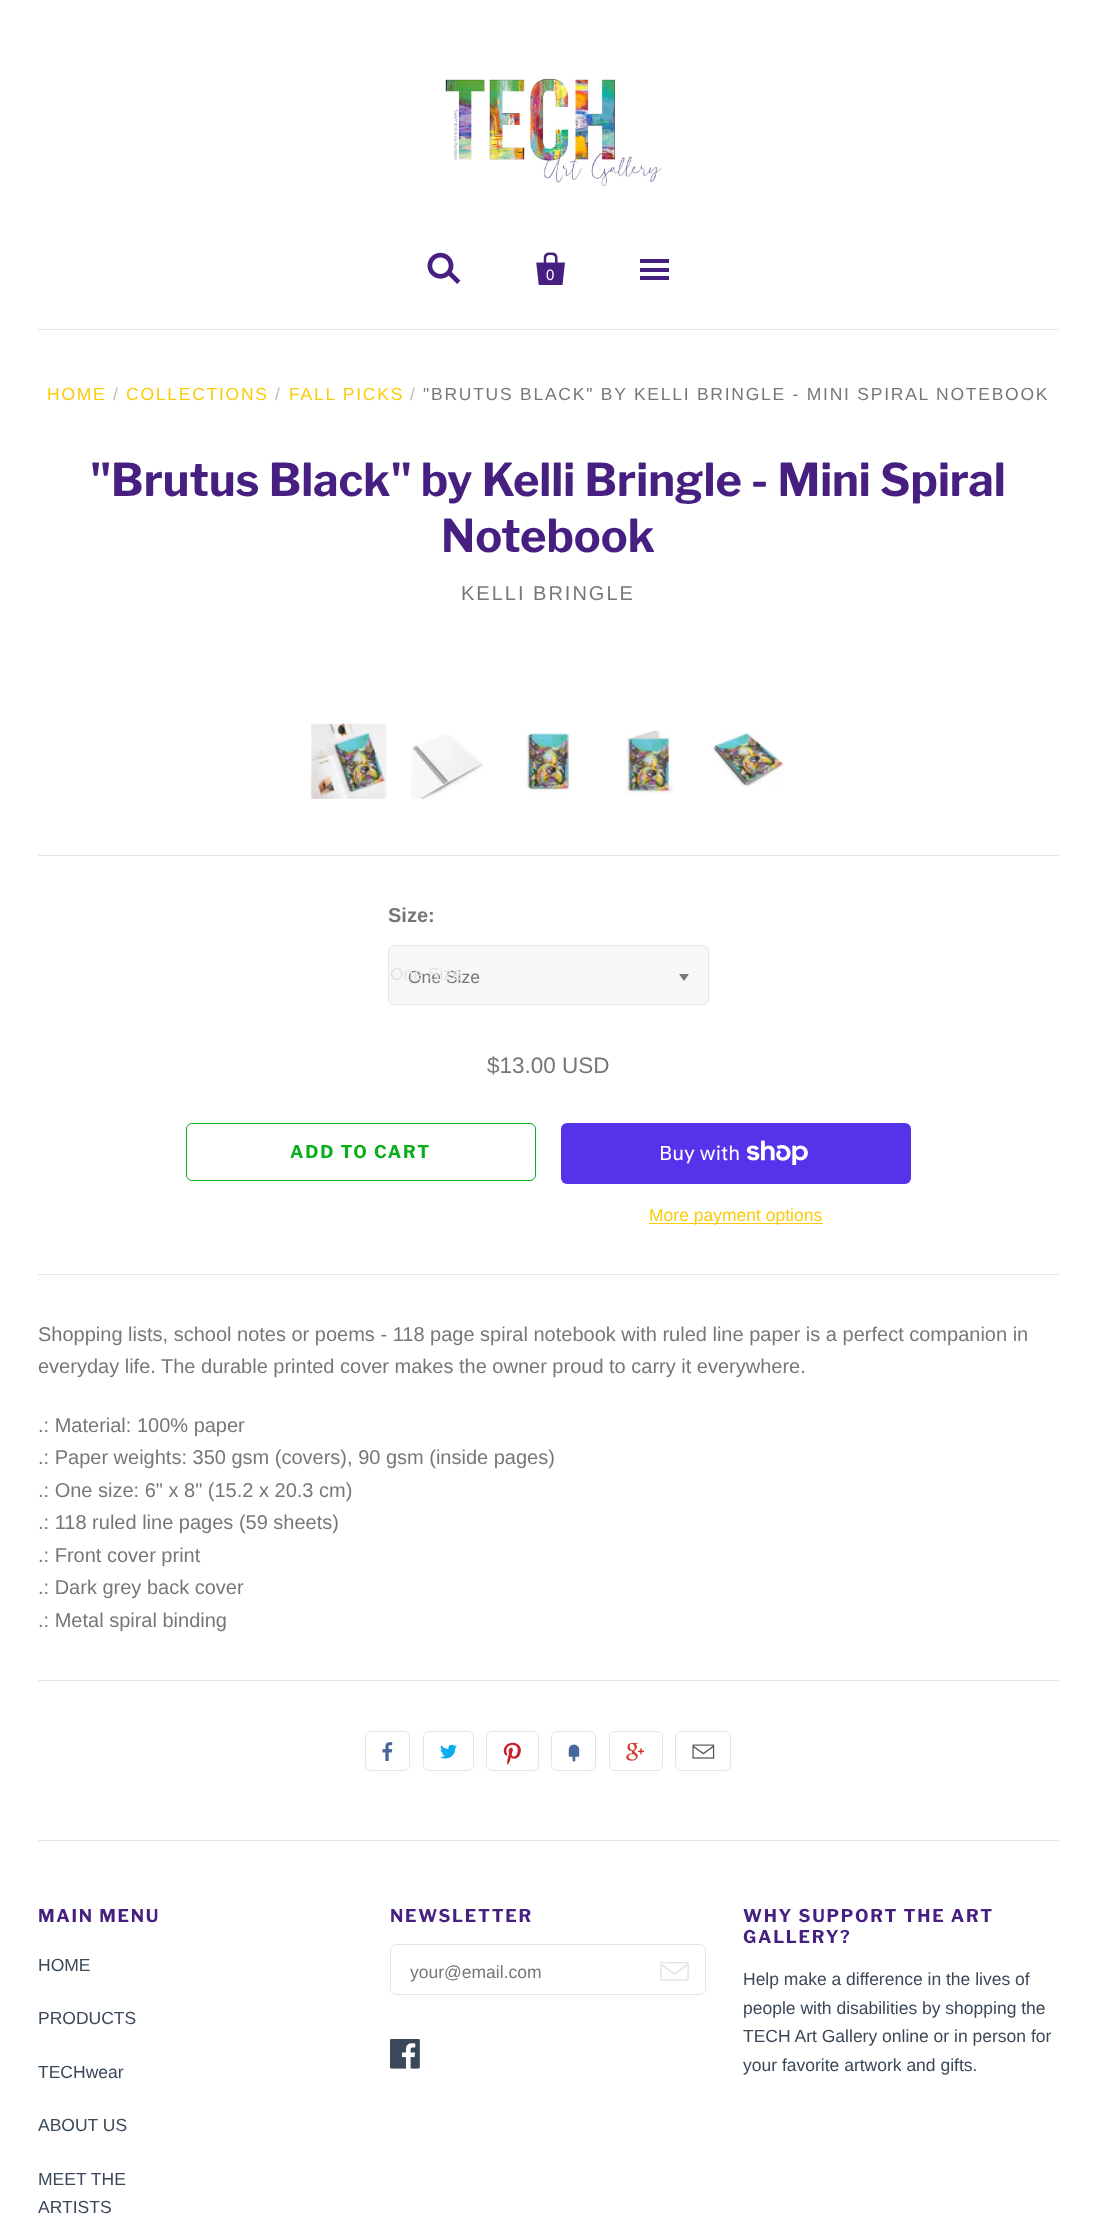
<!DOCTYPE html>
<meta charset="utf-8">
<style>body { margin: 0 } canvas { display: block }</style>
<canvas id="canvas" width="1096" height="2215"></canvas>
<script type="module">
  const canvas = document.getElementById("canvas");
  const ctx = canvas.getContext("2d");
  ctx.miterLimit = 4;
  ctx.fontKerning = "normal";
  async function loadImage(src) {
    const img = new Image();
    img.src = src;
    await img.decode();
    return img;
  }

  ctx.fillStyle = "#ffffff";
  ctx.fillRect(0, 0, 1096, 2215);
  ctx.fillStyle = "#e5e5e5";
  ctx.fillRect(38, 329, 1021, 1);
  ctx.drawImage(await loadImage("img1.png"), 444, 78, 218, 109);
  ctx.drawImage(await loadImage("img2.png"), 427, 252, 34, 32);
  ctx.drawImage(await loadImage("img3.png"), 536, 252, 29, 33);
  ctx.font = "15px Liberation Sans";
  ctx.fillStyle = "#ffffff";
  ctx.fillText("0", 546, 280);
  ctx.fillStyle = "#461f81";
  ctx.fillRect(640, 268, 29, 4);
  ctx.fillRect(640, 259, 29, 4);
  ctx.fillRect(640, 276, 29, 4);
  ctx.letterSpacing = "1.75px";
  ctx.font = "17.5px Liberation Sans";
  ctx.fillStyle = "#facb08";
  ctx.fillText("HOME", 47, 400);
  ctx.fillStyle = "#bbbbbb";
  ctx.fillText("/", 113, 400);
  ctx.fillStyle = "#facb08";
  ctx.fillText("COLLECTIONS", 126, 400);
  ctx.fillStyle = "#bbbbbb";
  ctx.fillText("/", 275, 400);
  ctx.fillStyle = "#facb08";
  ctx.fillText("FALL PICKS", 289, 400);
  ctx.fillStyle = "#bbbbbb";
  ctx.fillText("/", 410, 400);
  ctx.fillStyle = "#777777";
  ctx.fillText("\"BRUTUS BLACK\" BY KELLI BRINGLE - MINI SPIRAL NOTEBOOK", 423, 400);
  ctx.letterSpacing = "0px";
  ctx.font = "bold 45px Libre Franklin";
  ctx.fillStyle = "#461f81";
  ctx.fillText("\"Brutus Black\" by Kelli Bringle - Mini Spiral", 90, 496);
  ctx.fillText("Notebook", 441, 552);
  ctx.letterSpacing = "2px";
  ctx.font = "20px Liberation Sans";
  ctx.fillStyle = "#777777";
  ctx.fillText("KELLI BRINGLE", 461, 600);
  ctx.drawImage(await loadImage("img4.png"), 311, 723, 76, 76);
  ctx.drawImage(await loadImage("img5.png"), 411, 734, 72, 65);
  ctx.drawImage(await loadImage("img6.png"), 524, 732, 48, 62);
  ctx.drawImage(await loadImage("img7.png"), 624, 730, 51, 65);
  ctx.drawImage(await loadImage("img8.png"), 711, 732, 73, 57);
  ctx.fillStyle = "#e5e5e5";
  ctx.fillRect(38, 855, 1021, 1);
  ctx.letterSpacing = "0px";
  ctx.font = "bold 20px Liberation Sans";
  ctx.fillStyle = "#777777";
  ctx.fillText("Size:", 388, 922);
  ctx.fillStyle = "#f7f7f7";
  ctx.beginPath();
  ctx.roundRect(388.5, 945.5, 320, 59, 5.5);
  ctx.fill();
  ctx.strokeStyle = "#e5e5e5";
  ctx.stroke();
  ctx.font = "17.5px Liberation Sans";
  ctx.fillStyle = "#777777";
  ctx.fillText("One Size", 408, 983);
  ctx.fillStyle = "#e2e2e2";
  ctx.fillText("One Size", 390, 980);
  ctx.fillStyle = "#777777";
  ctx.beginPath();
  ctx.moveTo(679, 974);
  ctx.lineTo(689, 974);
  ctx.lineTo(684, 981);
  ctx.closePath();
  ctx.fill();
  ctx.font = "22.5px Liberation Sans";
  ctx.fillText("$13.00 USD", 487, 1073);
  ctx.beginPath();
  ctx.roundRect(186.5, 1123.5, 349, 57, 5.5);
  ctx.strokeStyle = "#09ae1a";
  ctx.stroke();
  ctx.letterSpacing = "1.75px";
  ctx.font = "bold 17.5px Libre Franklin";
  ctx.fillStyle = "#09ae1a";
  ctx.fillText("ADD TO CART", 290, 1158);
  ctx.fillStyle = "#5433eb";
  ctx.beginPath();
  ctx.roundRect(561, 1123, 350, 61, 6);
  ctx.fill();
  ctx.letterSpacing = "0px";
  ctx.font = "20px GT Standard";
  ctx.fillStyle = "#ffffff";
  ctx.fillText("Buy with", 659, 1160);
  ctx.drawImage(await loadImage("img9.png"), 746, 1140, 62, 25);
  ctx.fillStyle = "#facb08";
  ctx.fillRect(649, 1223, 174, 1);
  ctx.font = "17.5px Liberation Sans";
  ctx.fillText("More payment options", 649, 1221);
  ctx.fillStyle = "#e5e5e5";
  ctx.fillRect(38, 1274, 1021, 1);
  ctx.font = "20px Liberation Sans";
  ctx.fillStyle = "#777777";
  ctx.fillText("Shopping lists, school notes or poems - 118 page spiral notebook with ruled line paper is a perfect companion in", 38, 1341);
  ctx.fillText("everyday life. The durable printed cover makes the owner proud to carry it everywhere.", 38, 1373);
  ctx.fillText(".: Material: 100% paper", 38, 1432);
  ctx.fillText(".: Paper weights: 350 gsm (covers), 90 gsm (inside pages)", 38, 1464);
  ctx.fillText(".: One size: 6\" x 8\" (15.2 x 20.3 cm)", 38, 1497);
  ctx.fillText(".: 118 ruled line pages (59 sheets)", 38, 1529);
  ctx.fillText(".: Front cover print", 38, 1562);
  ctx.fillText(".: Dark grey back cover", 38, 1594);
  ctx.fillText(".: Metal spiral binding", 38, 1627);
  ctx.fillStyle = "#e5e5e5";
  ctx.fillRect(38, 1680, 1021, 1);
  ctx.beginPath();
  ctx.roundRect(365.5, 1731.5, 44, 39, 5.5);
  ctx.strokeStyle = "#e5e5e5";
  ctx.stroke();
  ctx.drawImage(await loadImage("img10.png"), 382, 1742, 11, 19);
  ctx.beginPath();
  ctx.roundRect(423.5, 1731.5, 50, 39, 5.5);
  ctx.stroke();
  ctx.drawImage(await loadImage("img11.png"), 440, 1744, 17, 15);
  ctx.beginPath();
  ctx.roundRect(486.5, 1731.5, 52, 39, 5.5);
  ctx.stroke();
  ctx.drawImage(await loadImage("img12.png"), 503, 1742, 18, 23);
  ctx.beginPath();
  ctx.roundRect(551.5, 1731.5, 44, 39, 5.5);
  ctx.stroke();
  ctx.drawImage(await loadImage("img13.png"), 568, 1744, 12, 18);
  ctx.beginPath();
  ctx.roundRect(609.5, 1731.5, 53, 39, 5.5);
  ctx.stroke();
  ctx.drawImage(await loadImage("img14.png"), 626, 1742, 18, 19);
  ctx.beginPath();
  ctx.roundRect(675.5, 1731.5, 55, 39, 5.5);
  ctx.stroke();
  ctx.drawImage(await loadImage("img15.png"), 692, 1744, 23, 15);
  ctx.fillRect(38, 1840, 1021, 1);
  ctx.letterSpacing = "1.75px";
  ctx.font = "bold 17.5px Libre Franklin";
  ctx.fillStyle = "#461f81";
  ctx.fillText("MAIN MENU", 38, 1922);
  ctx.letterSpacing = "0px";
  ctx.font = "17.5px Liberation Sans";
  ctx.fillStyle = "#3b4858";
  ctx.fillText("HOME", 38, 1971);
  ctx.fillText("PRODUCTS", 38, 2024);
  ctx.fillText("TECHwear", 38, 2078);
  ctx.fillText("ABOUT US", 38, 2131);
  ctx.fillText("MEET THE", 38, 2185);
  ctx.fillText("ARTISTS", 38, 2213);
  ctx.letterSpacing = "1.75px";
  ctx.font = "bold 17.5px Libre Franklin";
  ctx.fillStyle = "#461f81";
  ctx.fillText("NEWSLETTER", 390, 1922);
  ctx.beginPath();
  ctx.roundRect(390.5, 1944.5, 315, 50, 5.5);
  ctx.stroke();
  ctx.fillStyle = "#ffffff";
  ctx.beginPath();
  ctx.roundRect(391, 1945, 239, 49, 6);
  ctx.fill();
  ctx.letterSpacing = "0px";
  ctx.font = "17.5px Liberation Sans";
  ctx.fillStyle = "#777777";
  ctx.fillText("your@email.com", 410, 1978);
  ctx.drawImage(await loadImage("img16.png"), 660, 1962, 29, 19);
  ctx.drawImage(await loadImage("img17.png"), 390, 2039, 30, 30);
  ctx.letterSpacing = "1.75px";
  ctx.font = "bold 17.5px Libre Franklin";
  ctx.fillStyle = "#461f81";
  ctx.fillText("WHY SUPPORT THE ART", 743, 1922);
  ctx.fillText("GALLERY?", 743, 1943);
  ctx.letterSpacing = "0px";
  ctx.font = "17.5px Liberation Sans";
  ctx.fillStyle = "#3b4858";
  ctx.fillText("Help make a difference in the lives of", 743, 1985);
  ctx.fillText("people with disabilities by shopping the", 743, 2014);
  ctx.fillText("TECH Art Gallery online or in person for", 743, 2042);
  ctx.fillText("your favorite artwork and gifts.", 743, 2071);
</script>
